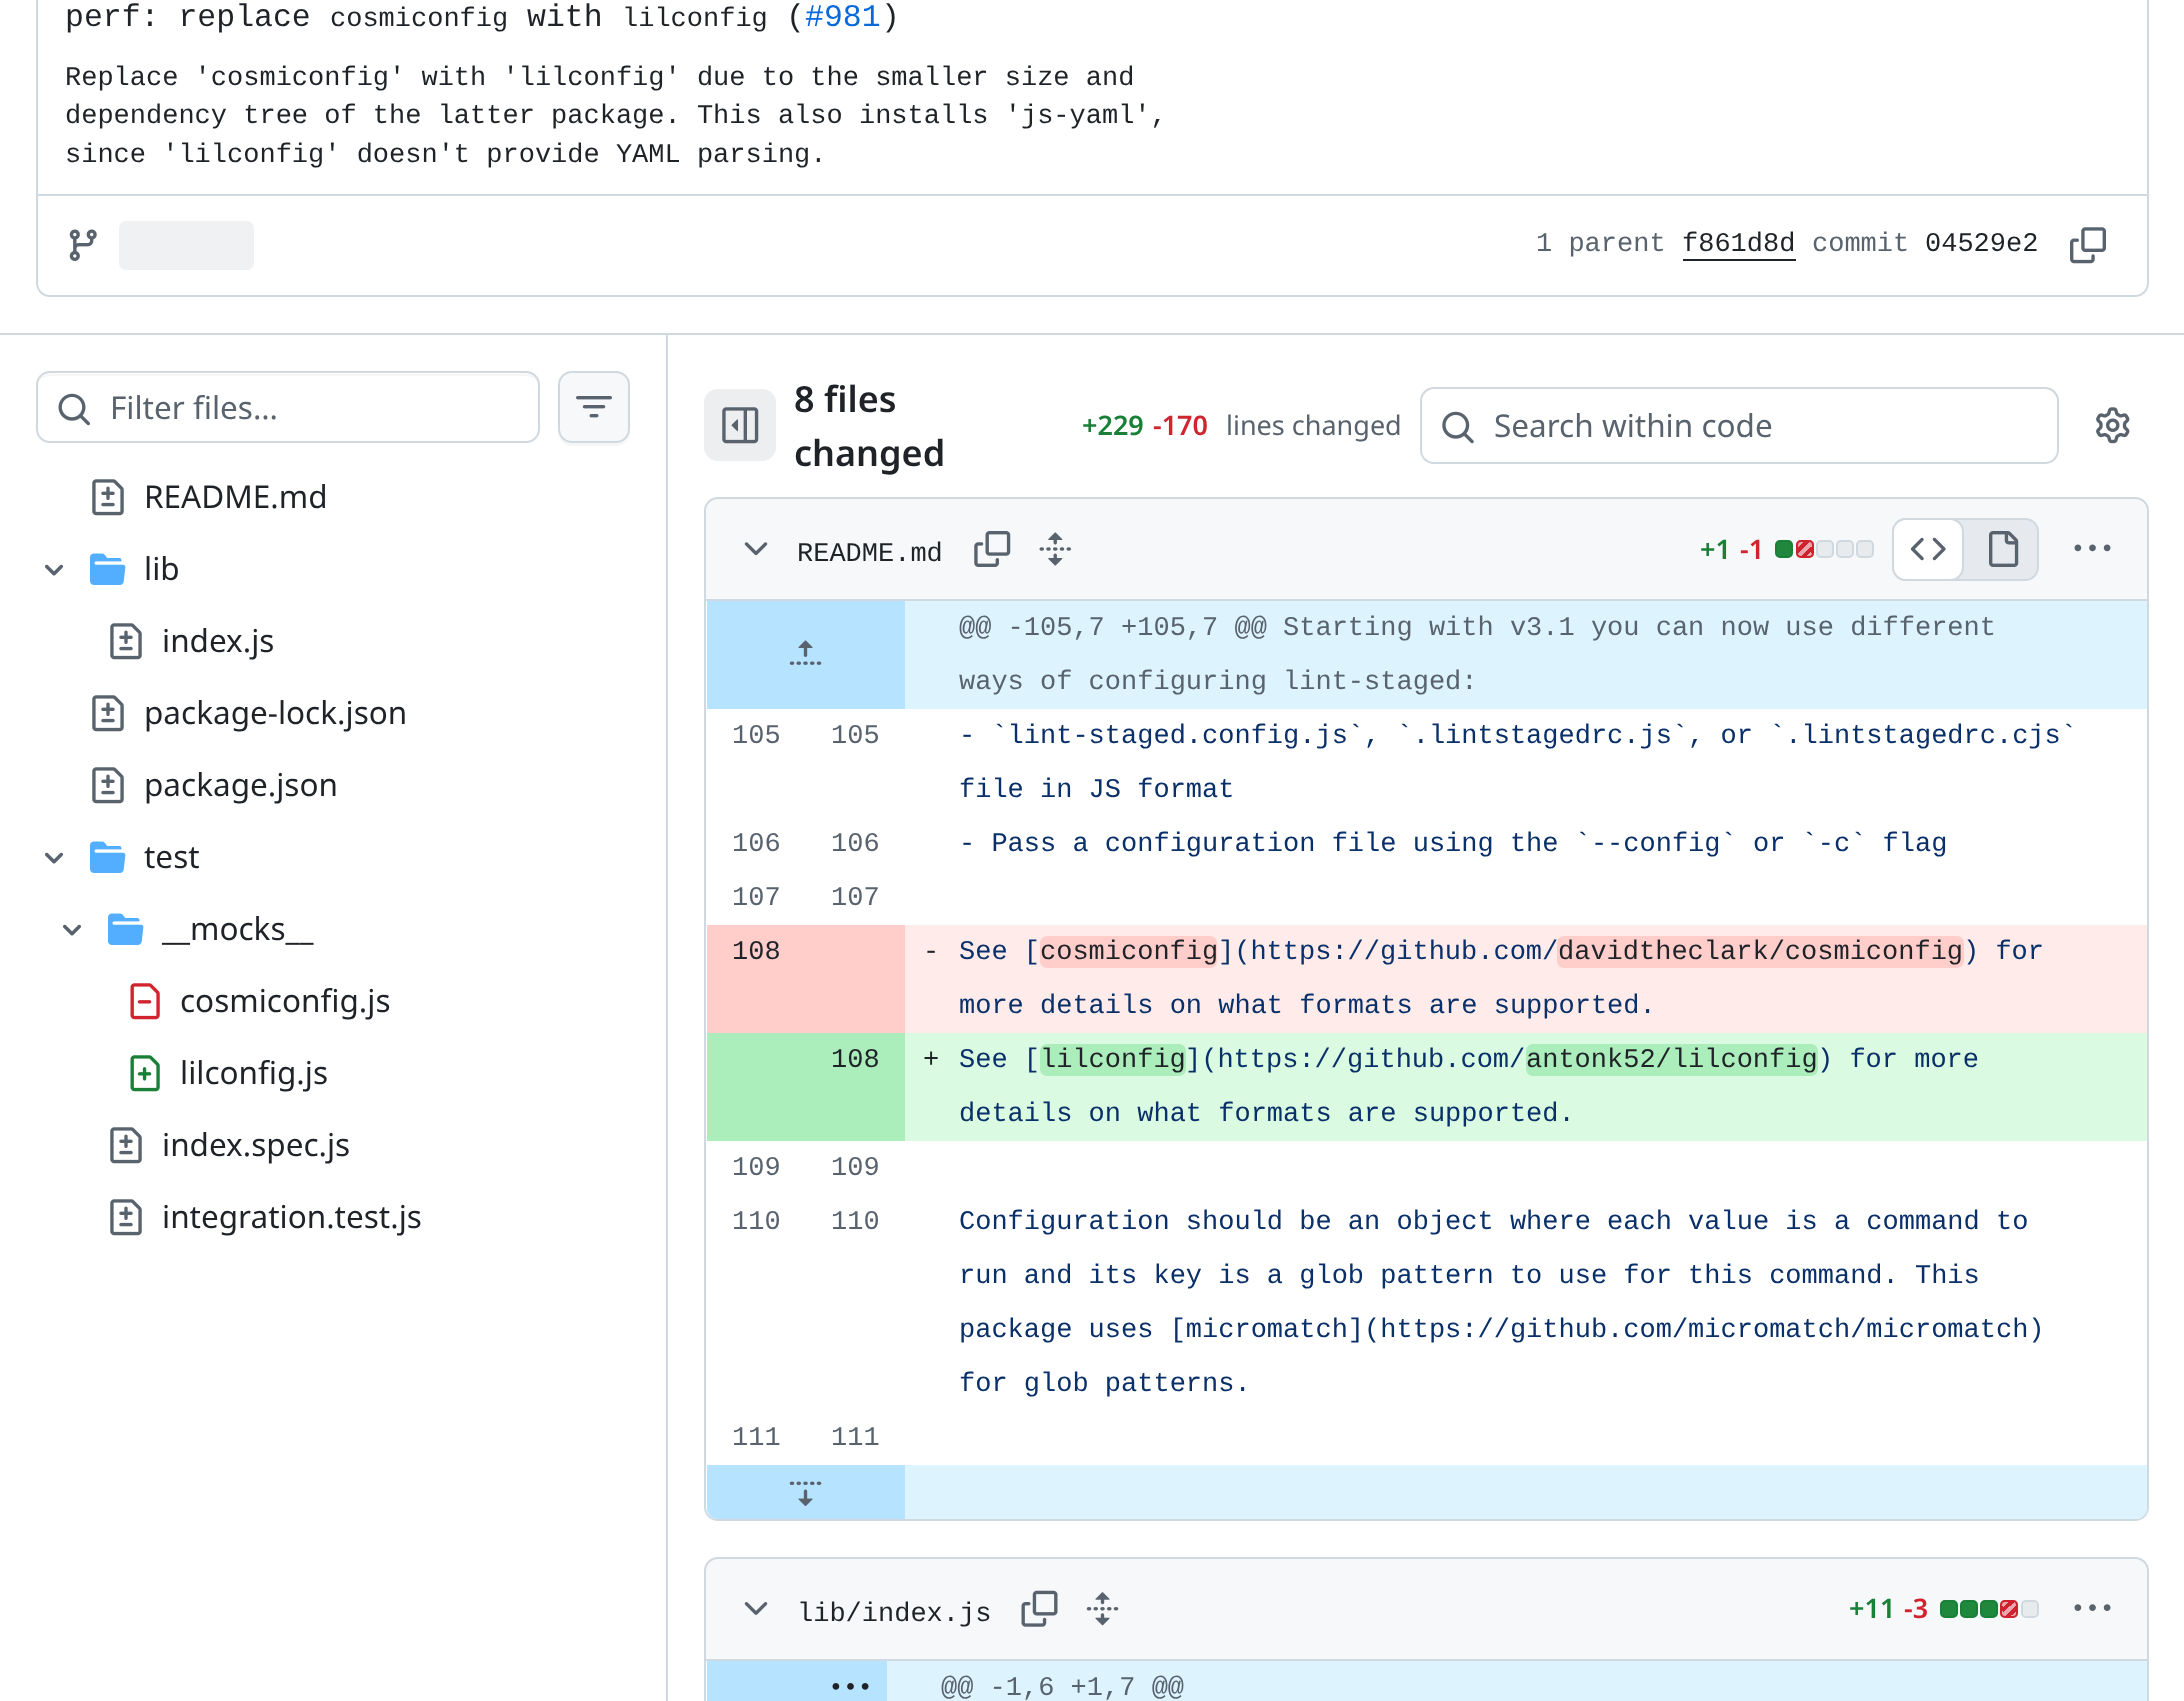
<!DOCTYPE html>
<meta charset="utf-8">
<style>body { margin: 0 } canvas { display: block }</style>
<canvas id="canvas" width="2184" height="1701"></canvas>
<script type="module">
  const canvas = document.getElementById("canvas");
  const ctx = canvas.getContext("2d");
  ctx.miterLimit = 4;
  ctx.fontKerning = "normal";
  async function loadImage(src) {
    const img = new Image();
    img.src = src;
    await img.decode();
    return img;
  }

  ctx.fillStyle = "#ffffff";
  ctx.fillRect(0, 0, 2184, 1701);
  ctx.beginPath();
  ctx.roundRect(37, -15, 2111, 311, 13);
  ctx.strokeStyle = "#d1d9e0";
  ctx.lineWidth = 2;
  ctx.stroke();
  ctx.fillStyle = "#d1d9e0";
  ctx.fillRect(38, 194, 2109, 2);
  ctx.font = "31.5px Liberation Mono";
  ctx.fillStyle = "#1f2328";
  ctx.fillText("perf: replace", 65, 26);
  ctx.font = "27px Liberation Mono";
  ctx.fillText("cosmiconfig", 330, 26);
  ctx.font = "31.5px Liberation Mono";
  ctx.fillText("with", 527, 26);
  ctx.font = "27px Liberation Mono";
  ctx.fillText("lilconfig", 622, 26);
  ctx.font = "31.5px Liberation Mono";
  ctx.fillText("(", 786, 26);
  ctx.fillStyle = "#0969da";
  ctx.fillText("#981", 805, 26);
  ctx.fillStyle = "#1f2328";
  ctx.fillText(")", 881, 26);
  ctx.font = "27px Liberation Mono";
  ctx.fillText("Replace 'cosmiconfig' with 'lilconfig' due to the smaller size and", 65, 85);
  ctx.fillText("dependency tree of the latter package. This also installs 'js-yaml',", 65, 123);
  ctx.fillText("since 'lilconfig' doesn't provide YAML parsing.", 65, 162);
  ctx.drawImage(await loadImage("img1.png"), 69, 229, 28, 32);
  ctx.fillStyle = "#f0f1f3";
  ctx.beginPath();
  ctx.roundRect(119, 221, 135, 49, 7);
  ctx.fill();
  ctx.fillStyle = "#59636e";
  ctx.fillText("1 parent", 1536, 251);
  ctx.fillStyle = "#1f2328";
  ctx.fillText("f861d8d", 1682, 251);
  ctx.fillRect(1683, 259, 113, 2);
  ctx.fillStyle = "#59636e";
  ctx.fillText("commit", 1812, 251);
  ctx.fillStyle = "#1f2328";
  ctx.fillText("04529e2", 1925, 251);
  ctx.drawImage(await loadImage("img2.png"), 2070, 227, 36, 37);
  ctx.fillStyle = "#d1d9e0";
  ctx.fillRect(0, 333, 2184, 2);
  ctx.fillStyle = "#f6f6f6";
  ctx.beginPath();
  ctx.moveTo(50, 376);
  ctx.lineTo(526, 376);
  ctx.bezierCurveTo(533, 376, 538, 381, 538, 387);
  ctx.lineTo(538, 385);
  ctx.bezierCurveTo(538, 379, 533, 374, 527, 374);
  ctx.lineTo(49, 374);
  ctx.bezierCurveTo(43, 374, 38, 379, 38, 385);
  ctx.lineTo(38, 387);
  ctx.bezierCurveTo(38, 381, 43, 376, 50, 376);
  ctx.closePath();
  ctx.fill();
  ctx.beginPath();
  ctx.roundRect(37, 372, 502, 70, 13);
  ctx.stroke();
  ctx.drawImage(await loadImage("img3.png"), 58, 393, 32, 33);
  ctx.font = "31.5px Noto Sans";
  ctx.fillStyle = "#59636e";
  ctx.fillText("Filter files…", 110, 419);
  ctx.fillStyle = "#f6f6f6";
  ctx.beginPath();
  ctx.moveTo(558, 430);
  ctx.lineTo(558, 432);
  ctx.bezierCurveTo(558, 440, 564, 446, 572, 446);
  ctx.lineTo(616, 446);
  ctx.bezierCurveTo(624, 446, 630, 440, 630, 432);
  ctx.lineTo(630, 430);
  ctx.bezierCurveTo(630, 437, 624, 443, 616, 443);
  ctx.lineTo(572, 443);
  ctx.bezierCurveTo(564, 443, 558, 437, 558, 430);
  ctx.closePath();
  ctx.fill();
  ctx.fillStyle = "#f6f8fa";
  ctx.beginPath();
  ctx.roundRect(559, 372, 70, 70, 13);
  ctx.fill();
  ctx.stroke();
  ctx.drawImage(await loadImage("img4.png"), 576, 396, 36, 22);
  ctx.drawImage(await loadImage("img5.png"), 92, 479, 32, 37);
  ctx.fillStyle = "#1f2328";
  ctx.fillText("README.md", 144, 508);
  ctx.drawImage(await loadImage("img6.png"), 45, 564, 18, 12);
  ctx.drawImage(await loadImage("img7.png"), 90, 553, 36, 32);
  ctx.fillText("lib", 144, 580);
  ctx.drawImage(await loadImage("img5.png"), 110, 623, 32, 37);
  ctx.fillText("index.js", 162, 652);
  ctx.drawImage(await loadImage("img5.png"), 92, 695, 32, 37);
  ctx.fillText("package-lock.json", 144, 724);
  ctx.drawImage(await loadImage("img5.png"), 92, 767, 32, 37);
  ctx.fillText("package.json", 144, 796);
  ctx.drawImage(await loadImage("img6.png"), 45, 852, 18, 12);
  ctx.drawImage(await loadImage("img7.png"), 90, 841, 36, 32);
  ctx.fillText("test", 144, 868);
  ctx.drawImage(await loadImage("img6.png"), 63, 924, 18, 12);
  ctx.drawImage(await loadImage("img7.png"), 108, 913, 36, 32);
  ctx.fillText("__mocks__", 162, 940);
  ctx.drawImage(await loadImage("img8.png"), 130, 983, 30, 37);
  ctx.fillText("cosmiconfig.js", 180, 1012);
  ctx.drawImage(await loadImage("img9.png"), 130, 1055, 30, 37);
  ctx.fillText("lilconfig.js", 180, 1084);
  ctx.drawImage(await loadImage("img5.png"), 110, 1127, 32, 37);
  ctx.fillText("index.spec.js", 162, 1156);
  ctx.drawImage(await loadImage("img5.png"), 110, 1199, 32, 37);
  ctx.fillText("integration.test.js", 162, 1228);
  ctx.fillStyle = "#d1d9e0";
  ctx.fillRect(666, 335, 2, 1366);
  ctx.fillStyle = "#eceef0";
  ctx.beginPath();
  ctx.roundRect(704, 389, 72, 72, 14);
  ctx.fill();
  ctx.drawImage(await loadImage("img10.png"), 722, 407, 37, 37);
  ctx.font = "600 36px Noto Sans";
  ctx.fillStyle = "#1f2328";
  ctx.fillText("8 files", 794, 412);
  ctx.fillText("changed", 794, 466);
  ctx.font = "600 27px Noto Sans";
  ctx.fillStyle = "#1a7f37";
  ctx.fillText("+229", 1082, 435);
  ctx.fillStyle = "#d1242f";
  ctx.fillText("-170", 1153, 435);
  ctx.font = "27px Noto Sans";
  ctx.fillStyle = "#59636e";
  ctx.fillText("lines changed", 1226, 435);
  ctx.fillStyle = "#f6f6f6";
  ctx.beginPath();
  ctx.moveTo(1433, 392);
  ctx.lineTo(2045, 392);
  ctx.bezierCurveTo(2051, 392, 2056, 397, 2056, 403);
  ctx.lineTo(2056, 452);
  ctx.lineTo(2055, 456);
  ctx.bezierCurveTo(2056, 454, 2057, 452, 2057, 450);
  ctx.lineTo(2057, 400);
  ctx.bezierCurveTo(2057, 394, 2052, 389, 2046, 389);
  ctx.lineTo(1433, 389);
  ctx.bezierCurveTo(1427, 389, 1422, 394, 1422, 400);
  ctx.lineTo(1422, 403);
  ctx.bezierCurveTo(1422, 397, 1427, 392, 1433, 392);
  ctx.closePath();
  ctx.fill();
  ctx.beginPath();
  ctx.roundRect(1421, 388, 637, 75, 13);
  ctx.stroke();
  ctx.fillStyle = "#ffffff";
  ctx.beginPath();
  ctx.roundRect(1422, 389, 635, 72, 14);
  ctx.fill();
  ctx.drawImage(await loadImage("img11.png"), 1442, 411, 32, 33);
  ctx.font = "31.5px Noto Sans";
  ctx.fillStyle = "#59636e";
  ctx.fillText("Search within code", 1494, 437);
  ctx.drawImage(await loadImage("img12.png"), 2096, 407, 34, 37);
  ctx.beginPath();
  ctx.roundRect(705, 600, 1443, 920, [0, 0, 13, 13]);
  ctx.stroke();
  ctx.fillStyle = "#f6f8fa";
  ctx.beginPath();
  ctx.roundRect(705, 498, 1443, 102, [13, 13, 0, 0]);
  ctx.fill();
  ctx.stroke();
  ctx.drawImage(await loadImage("img13.png"), 744, 542, 24, 14);
  ctx.font = "27px Liberation Mono";
  ctx.fillStyle = "#1f2328";
  ctx.fillText("README.md", 797, 561);
  ctx.drawImage(await loadImage("img14.png"), 974, 531, 37, 36);
  ctx.drawImage(await loadImage("img15.png"), 1039, 532, 32, 34);
  ctx.font = "600 27px Noto Sans";
  ctx.fillStyle = "#1a7f37";
  ctx.fillText("+1", 1700, 559);
  ctx.fillStyle = "#d1242f";
  ctx.fillText("-1", 1740, 559);
  ctx.fillStyle = "#1f883d";
  ctx.beginPath();
  ctx.roundRect(1776, 541, 16, 16, 4);
  ctx.fill();
  ctx.strokeStyle = "#1a7f37";
  ctx.stroke();
  ctx.fillStyle = "#cf222e";
  ctx.beginPath();
  ctx.roundRect(1796, 540, 18, 18, 5);
  ctx.fill();
  ctx.drawImage(await loadImage("img16.png"), 1796, 540, 18, 18);
  ctx.beginPath();
  ctx.roundRect(1797, 541, 16, 16, 4);
  ctx.strokeStyle = "#cf222e";
  ctx.stroke();
  ctx.fillStyle = "#e8ebee";
  ctx.beginPath();
  ctx.roundRect(1817, 541, 16, 16, 4);
  ctx.fill();
  ctx.strokeStyle = "#d1d9e0";
  ctx.stroke();
  ctx.beginPath();
  ctx.roundRect(1837, 541, 16, 16, 4);
  ctx.fill();
  ctx.stroke();
  ctx.beginPath();
  ctx.roundRect(1857, 541, 16, 16, 4);
  ctx.fill();
  ctx.stroke();
  ctx.fillStyle = "#e6eaef";
  ctx.beginPath();
  ctx.roundRect(1893, 519, 145, 61, 13);
  ctx.fill();
  ctx.stroke();
  ctx.fillStyle = "#ffffff";
  ctx.beginPath();
  ctx.roundRect(1893, 519, 70, 61, 13);
  ctx.fill();
  ctx.stroke();
  ctx.drawImage(await loadImage("img17.png"), 1910, 537, 36, 24);
  ctx.drawImage(await loadImage("img18.png"), 1989, 531, 30, 36);
  ctx.drawImage(await loadImage("img19.png"), 2074, 544, 37, 8);
  ctx.fillStyle = "#ddf4ff";
  ctx.fillRect(905, 601, 1242, 108);
  ctx.fillStyle = "#b6e3ff";
  ctx.fillRect(707, 601, 198, 108);
  ctx.drawImage(await loadImage("img20.png"), 789, 640, 33, 25);
  ctx.font = "27px Liberation Mono";
  ctx.fillStyle = "#59636e";
  ctx.fillText("@@ -105,7 +105,7 @@ Starting with v3.1 you can now use different", 959, 635);
  ctx.fillText("ways of configuring lint-staged:", 959, 689);
  ctx.fillText("105", 732, 743);
  ctx.fillText("105", 831, 743);
  ctx.fillStyle = "#0a3069";
  ctx.fillText("- `lint-staged.config.js`, `.lintstagedrc.js`, or `.lintstagedrc.cjs`", 959, 743);
  ctx.fillText("file in JS format", 959, 797);
  ctx.fillStyle = "#59636e";
  ctx.fillText("106", 732, 851);
  ctx.fillText("106", 831, 851);
  ctx.fillStyle = "#0a3069";
  ctx.fillText("- Pass a configuration file using the `--config` or `-c` flag", 959, 851);
  ctx.fillStyle = "#59636e";
  ctx.fillText("107", 732, 905);
  ctx.fillText("107", 831, 905);
  ctx.fillStyle = "#ffcecb";
  ctx.fillRect(707, 925, 198, 108);
  ctx.fillStyle = "#1f2328";
  ctx.fillText("108", 732, 959);
  ctx.fillStyle = "#ffebe9";
  ctx.fillRect(905, 925, 1242, 108);
  ctx.fillStyle = "#1f2328";
  ctx.fillText("-", 923, 959);
  ctx.fillStyle = "#0a3069";
  ctx.fillText("See [", 959, 959);
  ctx.fillStyle = "#ffcecb";
  ctx.beginPath();
  ctx.roundRect(1040, 936, 177, 32, 7);
  ctx.fill();
  ctx.fillStyle = "#1f2328";
  ctx.fillText("cosmiconfig", 1040, 959);
  ctx.fillStyle = "#0a3069";
  ctx.fillText("](https://github.com/", 1218, 959);
  ctx.fillStyle = "#ffcecb";
  ctx.beginPath();
  ctx.roundRect(1557, 936, 407, 32, 7);
  ctx.fill();
  ctx.fillStyle = "#1f2328";
  ctx.fillText("davidtheclark/cosmiconfig", 1558, 959);
  ctx.fillStyle = "#0a3069";
  ctx.fillText(") for", 1963, 959);
  ctx.fillText("more details on what formats are supported.", 959, 1013);
  ctx.fillStyle = "#aceebb";
  ctx.fillRect(707, 1033, 198, 108);
  ctx.fillStyle = "#dafbe1";
  ctx.fillRect(905, 1033, 1242, 108);
  ctx.fillStyle = "#1f2328";
  ctx.fillText("+", 923, 1067);
  ctx.fillStyle = "#0a3069";
  ctx.fillText("See [", 959, 1067);
  ctx.fillStyle = "#aceebb";
  ctx.beginPath();
  ctx.roundRect(1040, 1044, 146, 32, 7);
  ctx.fill();
  ctx.fillStyle = "#1f2328";
  ctx.fillText("lilconfig", 1040, 1067);
  ctx.fillStyle = "#0a3069";
  ctx.fillText("](https://github.com/", 1185, 1067);
  ctx.fillStyle = "#aceebb";
  ctx.beginPath();
  ctx.roundRect(1526, 1044, 292, 32, 7);
  ctx.fill();
  ctx.fillStyle = "#1f2328";
  ctx.fillText("antonk52/lilconfig", 1526, 1067);
  ctx.fillStyle = "#0a3069";
  ctx.fillText(") for more", 1817, 1067);
  ctx.fillText("details on what formats are supported.", 959, 1121);
  ctx.fillStyle = "#1f2328";
  ctx.fillText("108", 831, 1067);
  ctx.fillStyle = "#59636e";
  ctx.fillText("109", 732, 1175);
  ctx.fillText("109", 831, 1175);
  ctx.fillText("110", 732, 1229);
  ctx.fillText("110", 831, 1229);
  ctx.fillStyle = "#0a3069";
  ctx.fillText("Configuration should be an object where each value is a command to", 959, 1229);
  ctx.fillText("run and its key is a glob pattern to use for this command. This", 959, 1283);
  ctx.fillText("package uses [micromatch](https://github.com/micromatch/micromatch)", 959, 1337);
  ctx.fillText("for glob patterns.", 959, 1391);
  ctx.fillStyle = "#59636e";
  ctx.fillText("111", 732, 1445);
  ctx.fillText("111", 831, 1445);
  ctx.fillStyle = "#ddf4ff";
  ctx.beginPath();
  ctx.roundRect(707, 1465, 1440, 54, [0, 0, 11, 11]);
  ctx.fill();
  ctx.fillStyle = "#b6e3ff";
  ctx.beginPath();
  ctx.roundRect(707, 1465, 198, 54, [0, 0, 0, 11]);
  ctx.fill();
  ctx.drawImage(await loadImage("img21.png"), 789, 1481, 33, 26);
  ctx.strokeRect(705, 1659, 1443, 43);
  ctx.fillStyle = "#f6f8fa";
  ctx.beginPath();
  ctx.roundRect(705, 1558, 1443, 102, [13, 13, 0, 0]);
  ctx.fill();
  ctx.stroke();
  ctx.drawImage(await loadImage("img22.png"), 744, 1602, 24, 13);
  ctx.fillStyle = "#1f2328";
  ctx.fillText("lib/index.js", 797, 1621);
  ctx.drawImage(await loadImage("img23.png"), 1021, 1590, 37, 37);
  ctx.drawImage(await loadImage("img24.png"), 1086, 1592, 33, 34);
  ctx.font = "600 27px Noto Sans";
  ctx.fillStyle = "#1a7f37";
  ctx.fillText("+11", 1849, 1618);
  ctx.fillStyle = "#d1242f";
  ctx.fillText("-3", 1904, 1618);
  ctx.fillStyle = "#1f883d";
  ctx.beginPath();
  ctx.roundRect(1941, 1601, 16, 16, 4);
  ctx.fill();
  ctx.strokeStyle = "#1a7f37";
  ctx.stroke();
  ctx.beginPath();
  ctx.roundRect(1961, 1601, 16, 16, 4);
  ctx.fill();
  ctx.stroke();
  ctx.beginPath();
  ctx.roundRect(1981, 1601, 16, 16, 4);
  ctx.fill();
  ctx.stroke();
  ctx.fillStyle = "#cf222e";
  ctx.beginPath();
  ctx.roundRect(2000, 1600, 18, 18, 5);
  ctx.fill();
  ctx.drawImage(await loadImage("img25.png"), 2000, 1600, 18, 18);
  ctx.beginPath();
  ctx.roundRect(2001, 1601, 16, 16, 4);
  ctx.strokeStyle = "#cf222e";
  ctx.stroke();
  ctx.fillStyle = "#e8ebee";
  ctx.beginPath();
  ctx.roundRect(2022, 1601, 16, 16, 4);
  ctx.fill();
  ctx.strokeStyle = "#d1d9e0";
  ctx.stroke();
  ctx.drawImage(await loadImage("img26.png"), 2074, 1604, 37, 7);
  ctx.fillStyle = "#ddf4ff";
  ctx.fillRect(887, 1661, 1260, 40);
  ctx.fillStyle = "#b6e3ff";
  ctx.fillRect(707, 1661, 180, 40);
  ctx.drawImage(await loadImage("img27.png"), 832, 1683, 37, 7);
  ctx.font = "27px Liberation Mono";
  ctx.fillStyle = "#59636e";
  ctx.fillText("@@ -1,6 +1,7 @@", 941, 1695);
</script>
